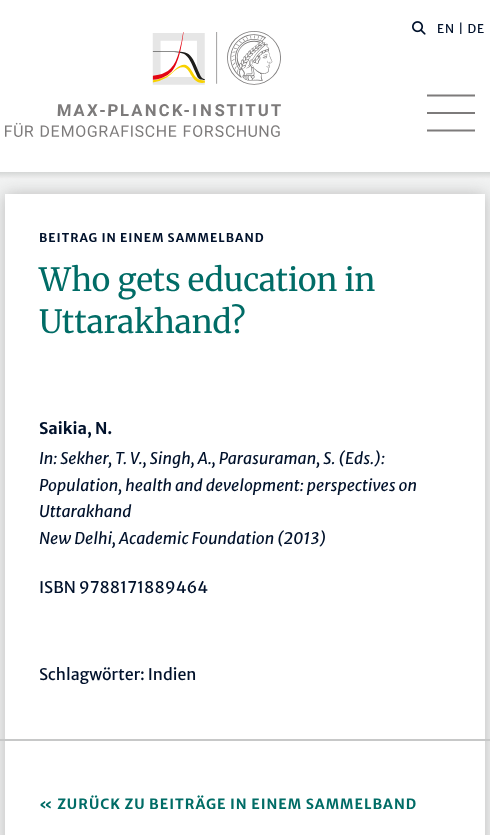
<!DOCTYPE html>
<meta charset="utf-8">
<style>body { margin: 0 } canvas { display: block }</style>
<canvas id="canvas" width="490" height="835"></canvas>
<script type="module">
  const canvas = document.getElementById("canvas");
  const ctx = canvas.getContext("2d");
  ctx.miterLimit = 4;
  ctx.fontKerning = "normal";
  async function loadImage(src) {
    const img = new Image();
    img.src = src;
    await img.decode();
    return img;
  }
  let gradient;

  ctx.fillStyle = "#ffffff";
  ctx.fillRect(0, 0, 490, 835);
  ctx.drawImage(await loadImage("img1.png"), 412, 21, 14, 14);
  ctx.letterSpacing = "1px";
  ctx.font = "12px Merriweather Sans";
  ctx.fillStyle = "#00112b";
  ctx.fillText("EN | DE", 437, 33);
  ctx.beginPath();
  ctx.moveTo(427, 95.5);
  ctx.lineTo(475, 95.5);
  ctx.moveTo(427, 113);
  ctx.lineTo(475, 113);
  ctx.moveTo(427, 130.5);
  ctx.lineTo(475, 130.5);
  ctx.strokeStyle = "#7d7b7b";
  ctx.lineWidth = 2.2;
  ctx.stroke();
  ctx.drawImage(await loadImage("img2.png"), 5, 31, 276, 106);
  gradient = ctx.createLinearGradient(245, 172, 245, 179);
  gradient.addColorStop(0, "#d5d7d6");
  gradient.addColorStop(1, "#f2f2f2");
  ctx.fillStyle = gradient;
  ctx.fillRect(0, 172, 490, 7);
  ctx.fillStyle = "#f1f2f2";
  ctx.fillRect(0, 179, 490, 656);
  ctx.fillStyle = "#bbbbbb";
  ctx.filter = "blur(7.5px)";
  ctx.beginPath();
  ctx.rect(5, 194, 480, 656);
  ctx.fill();
  ctx.filter = "none";
  ctx.fillStyle = "#ffffff";
  ctx.fillRect(5, 194, 480, 641);
  ctx.font = "bold 12px Merriweather Sans";
  ctx.fillStyle = "#00112b";
  ctx.fillText("BEITRAG IN EINEM SAMMELBAND", 39, 242);
  ctx.letterSpacing = "0px";
  ctx.font = "32px Merriweather";
  ctx.fillStyle = "#006c66";
  ctx.fillText("Who gets education in", 39, 291);
  ctx.fillText("Uttarakhand?", 39, 333);
  ctx.font = "bold 16px Merriweather Sans";
  ctx.fillStyle = "#00112b";
  ctx.fillText("Saikia, N.", 39, 434);
  ctx.font = "italic 16px Merriweather Sans";
  ctx.fillText("In: Sekher, T. V., Singh, A., Parasuraman, S. (Eds.):", 39, 464);
  ctx.fillText("Population, health and development: perspectives on", 39, 491);
  ctx.fillText("Uttarakhand", 39, 517);
  ctx.fillText("New Delhi, Academic Foundation (2013)", 39, 544);
  ctx.font = "16px Merriweather Sans";
  ctx.fillText("ISBN 9788171889464", 39, 593);
  ctx.fillText("Schlagwörter: Indien", 39, 680);
  ctx.fillStyle = "#c7c8c8";
  ctx.fillRect(0, 739, 490, 2);
  ctx.letterSpacing = "1px";
  ctx.font = "bold 14px Merriweather Sans";
  ctx.fillStyle = "#006c66";
  ctx.fillText("« ZURÜCK ZU BEITRÄGE IN EINEM SAMMELBAND", 39, 809);
</script>
